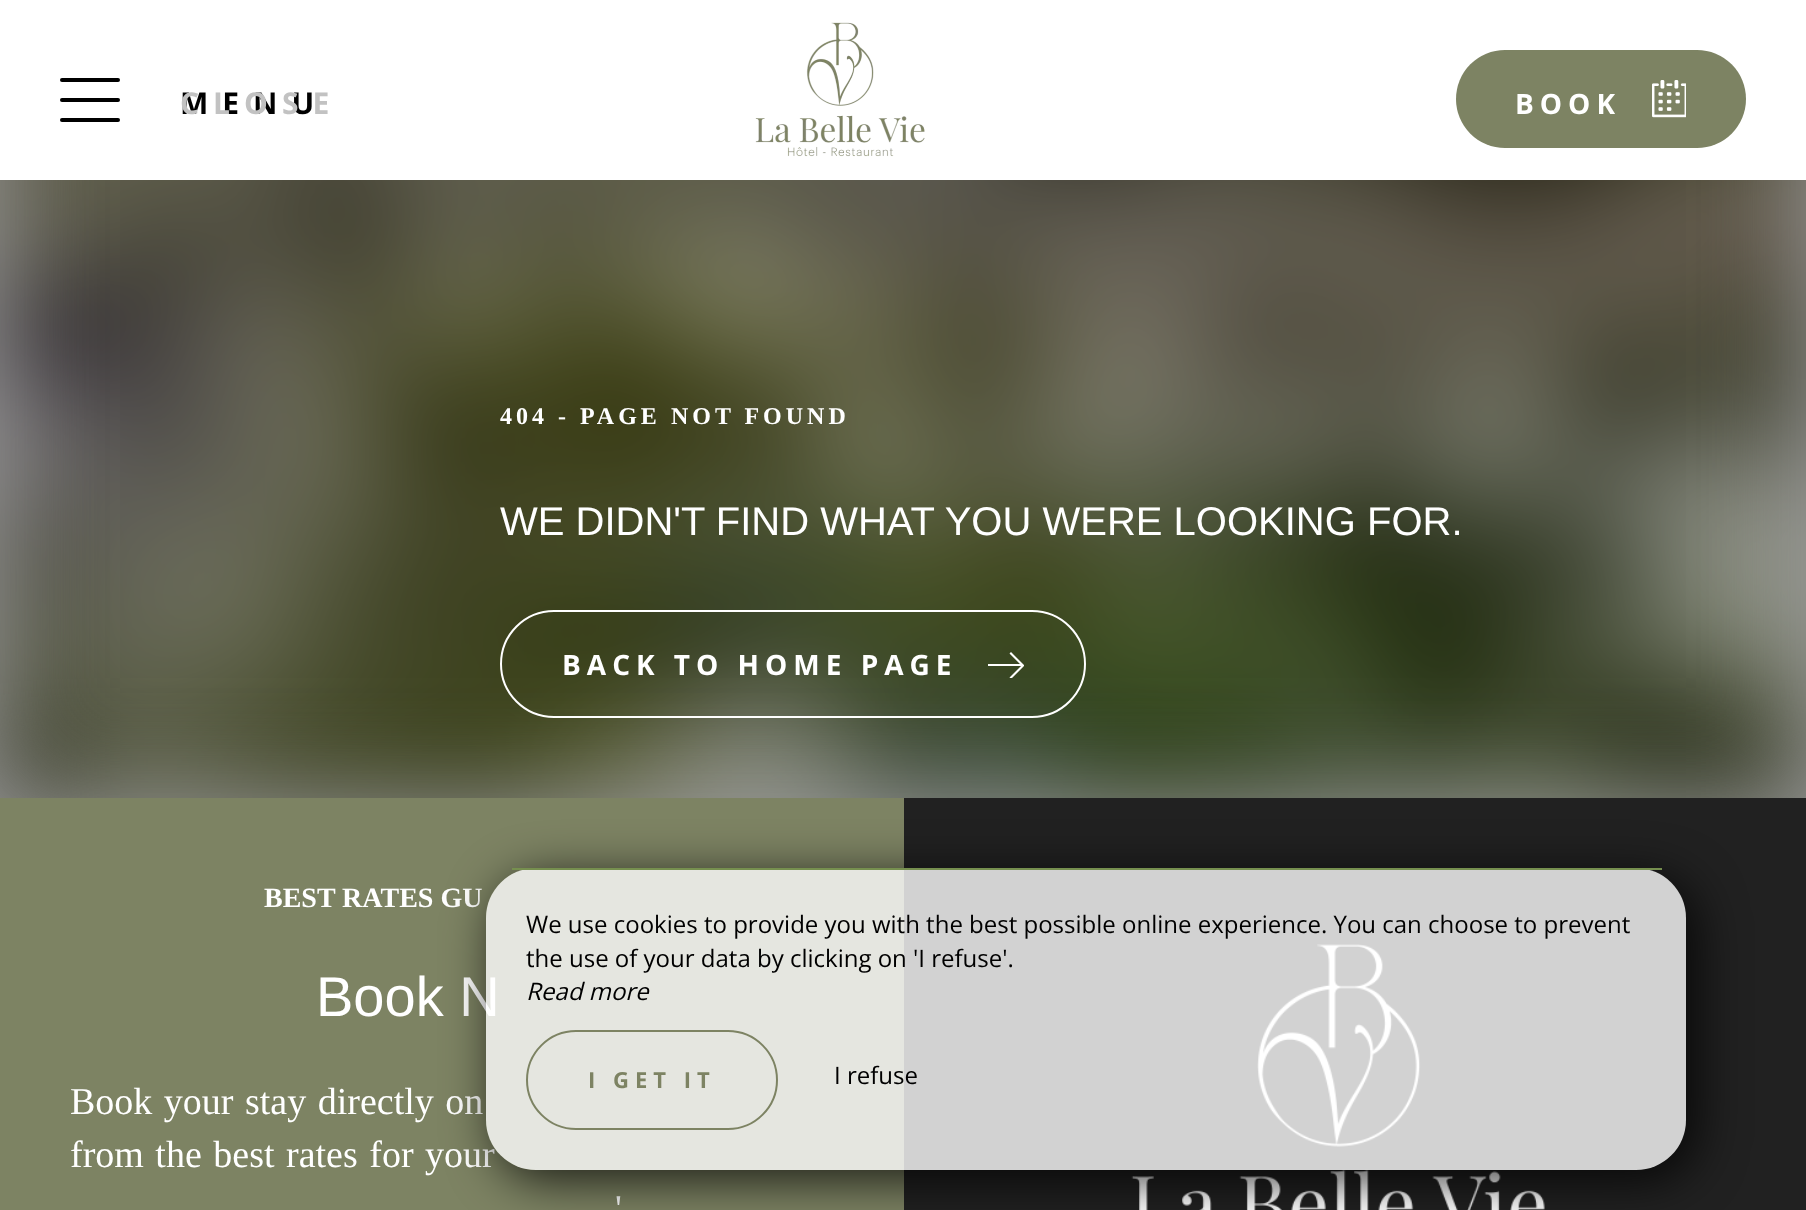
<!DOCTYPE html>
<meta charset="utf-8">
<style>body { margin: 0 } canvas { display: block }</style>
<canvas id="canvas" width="1806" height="1210"></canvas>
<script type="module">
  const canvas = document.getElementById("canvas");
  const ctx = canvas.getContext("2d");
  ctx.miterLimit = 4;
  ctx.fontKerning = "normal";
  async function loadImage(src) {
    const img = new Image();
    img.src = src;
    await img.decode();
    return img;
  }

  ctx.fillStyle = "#999999";
  ctx.fillRect(0, 0, 1806, 1210);
  ctx.fillStyle = "#ffffff";
  ctx.fillRect(0, 0, 1806, 180);
  ctx.fillStyle = "#000000";
  ctx.beginPath();
  ctx.roundRect(60, 78, 60, 4, 2);
  ctx.fill();
  ctx.beginPath();
  ctx.roundRect(60, 98, 60, 4, 2);
  ctx.fill();
  ctx.beginPath();
  ctx.roundRect(60, 118, 60, 4, 2);
  ctx.fill();
  ctx.letterSpacing = "14px";
  ctx.font = "bold 30px Open Sans";
  ctx.fillText("MENU", 180, 114);
  ctx.fillStyle = "#c2c2c2";
  ctx.fillText("CLOSE", 180, 114);
  ctx.drawImage(await loadImage("img1.png"), 755, 22, 170, 135);
  ctx.fillStyle = "#7d8363";
  ctx.beginPath();
  ctx.roundRect(1456, 50, 290, 98, 49);
  ctx.fill();
  ctx.letterSpacing = "6px";
  ctx.font = "bold 28px Open Sans";
  ctx.fillStyle = "#ffffff";
  ctx.fillText("BOOK", 1515, 114);
  ctx.drawImage(await loadImage("img2.png"), 1652, 80, 34, 38);
  ctx.drawImage(await loadImage("img3.png"), 0, 180, 1806, 618);
  ctx.letterSpacing = "4px";
  ctx.font = "bold 24px Liberation Serif";
  ctx.fillText("404 - PAGE NOT FOUND", 500, 424);
  ctx.letterSpacing = "0px";
  ctx.font = "40px Liberation Sans";
  ctx.fillText("WE DIDN'T FIND WHAT YOU WERE LOOKING FOR.", 500, 535);
  ctx.beginPath();
  ctx.roundRect(501, 611, 584, 106, 53);
  ctx.strokeStyle = "#ffffff";
  ctx.lineWidth = 2;
  ctx.stroke();
  ctx.letterSpacing = "6px";
  ctx.font = "bold 28px Open Sans";
  ctx.fillText("BACK TO HOME PAGE", 562, 675);
  ctx.save();
  ctx.beginPath();
  ctx.rect(988, 652, 36, 26);
  ctx.clip();
  ctx.beginPath();
  ctx.moveTo(1009.5, 653.5);
  ctx.lineTo(1011, 652);
  ctx.lineTo(1024.5, 665.5);
  ctx.lineTo(1011, 679);
  ctx.lineTo(1009.5, 677.5);
  ctx.lineTo(1021.5, 665.5);
  ctx.closePath();
  ctx.fill();
  ctx.restore();
  ctx.fillRect(988, 664, 35, 2);
  ctx.fillStyle = "#212121";
  ctx.fillRect(904, 798, 902, 412);
  ctx.fillStyle = "#7d8363";
  ctx.fillRect(0, 798, 904, 412);
  ctx.letterSpacing = "0px";
  ctx.font = "bold 28px Liberation Serif";
  ctx.fillStyle = "#ffffff";
  ctx.fillText("BEST RATES GU", 264, 907);
  ctx.font = "56px Liberation Sans";
  ctx.fillText("Book N", 316, 1016);
  ctx.wordSpacing = "2px";
  ctx.font = "38px Liberation Serif";
  ctx.fillText("Book your stay directly on", 70, 1114);
  ctx.fillText("from the best rates for your", 70, 1167);
  ctx.wordSpacing = "0px";
  ctx.fillText("'", 615, 1221);
  ctx.drawImage(await loadImage("img4.png"), 1131, 944, 414, 266);
  ctx.save();
  ctx.beginPath();
  ctx.moveTo(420, 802);
  ctx.lineTo(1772, 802);
  ctx.lineTo(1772, 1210);
  ctx.lineTo(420, 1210);
  ctx.closePath();
  ctx.moveTo(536, 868);
  ctx.lineTo(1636, 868);
  ctx.bezierCurveTo(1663.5, 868, 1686, 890.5, 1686, 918);
  ctx.lineTo(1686, 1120);
  ctx.bezierCurveTo(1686, 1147.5, 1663.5, 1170, 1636, 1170);
  ctx.lineTo(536, 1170);
  ctx.bezierCurveTo(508.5, 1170, 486, 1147.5, 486, 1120);
  ctx.lineTo(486, 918);
  ctx.bezierCurveTo(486, 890.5, 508.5, 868, 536, 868);
  ctx.closePath();
  ctx.clip("evenodd");
  ctx.fillStyle = "rgba(0, 0, 0, 0.8)";
  ctx.filter = "blur(25px)";
  ctx.beginPath();
  ctx.roundRect(496, 878, 1200, 302, 50);
  ctx.fill();
  ctx.filter = "none";
  ctx.restore();
  ctx.fillStyle = "rgba(255, 255, 255, 0.8)";
  ctx.beginPath();
  ctx.roundRect(486, 868, 1200, 302, 50);
  ctx.fill();
  ctx.fillStyle = "#768f4f";
  ctx.fillRect(512, 868, 1150, 2);
  ctx.font = "24px Open Sans";
  ctx.fillStyle = "#000000";
  ctx.fillText("We use cookies to provide you with the best possible online experience. You can choose to prevent", 526, 933);
  ctx.fillText("the use of your data by clicking on 'I refuse'.", 526, 967);
  ctx.font = "italic 24px Open Sans";
  ctx.fillText("Read more", 526, 1000);
  ctx.beginPath();
  ctx.roundRect(527, 1031, 250, 98, 49);
  ctx.strokeStyle = "#7d8363";
  ctx.stroke();
  ctx.letterSpacing = "6px";
  ctx.font = "bold 22px Open Sans";
  ctx.fillStyle = "#7d8363";
  ctx.fillText("I GET IT", 588, 1088);
  ctx.letterSpacing = "0px";
  ctx.font = "24px Open Sans";
  ctx.fillStyle = "#000000";
  ctx.fillText("I refuse", 834, 1084);
</script>
